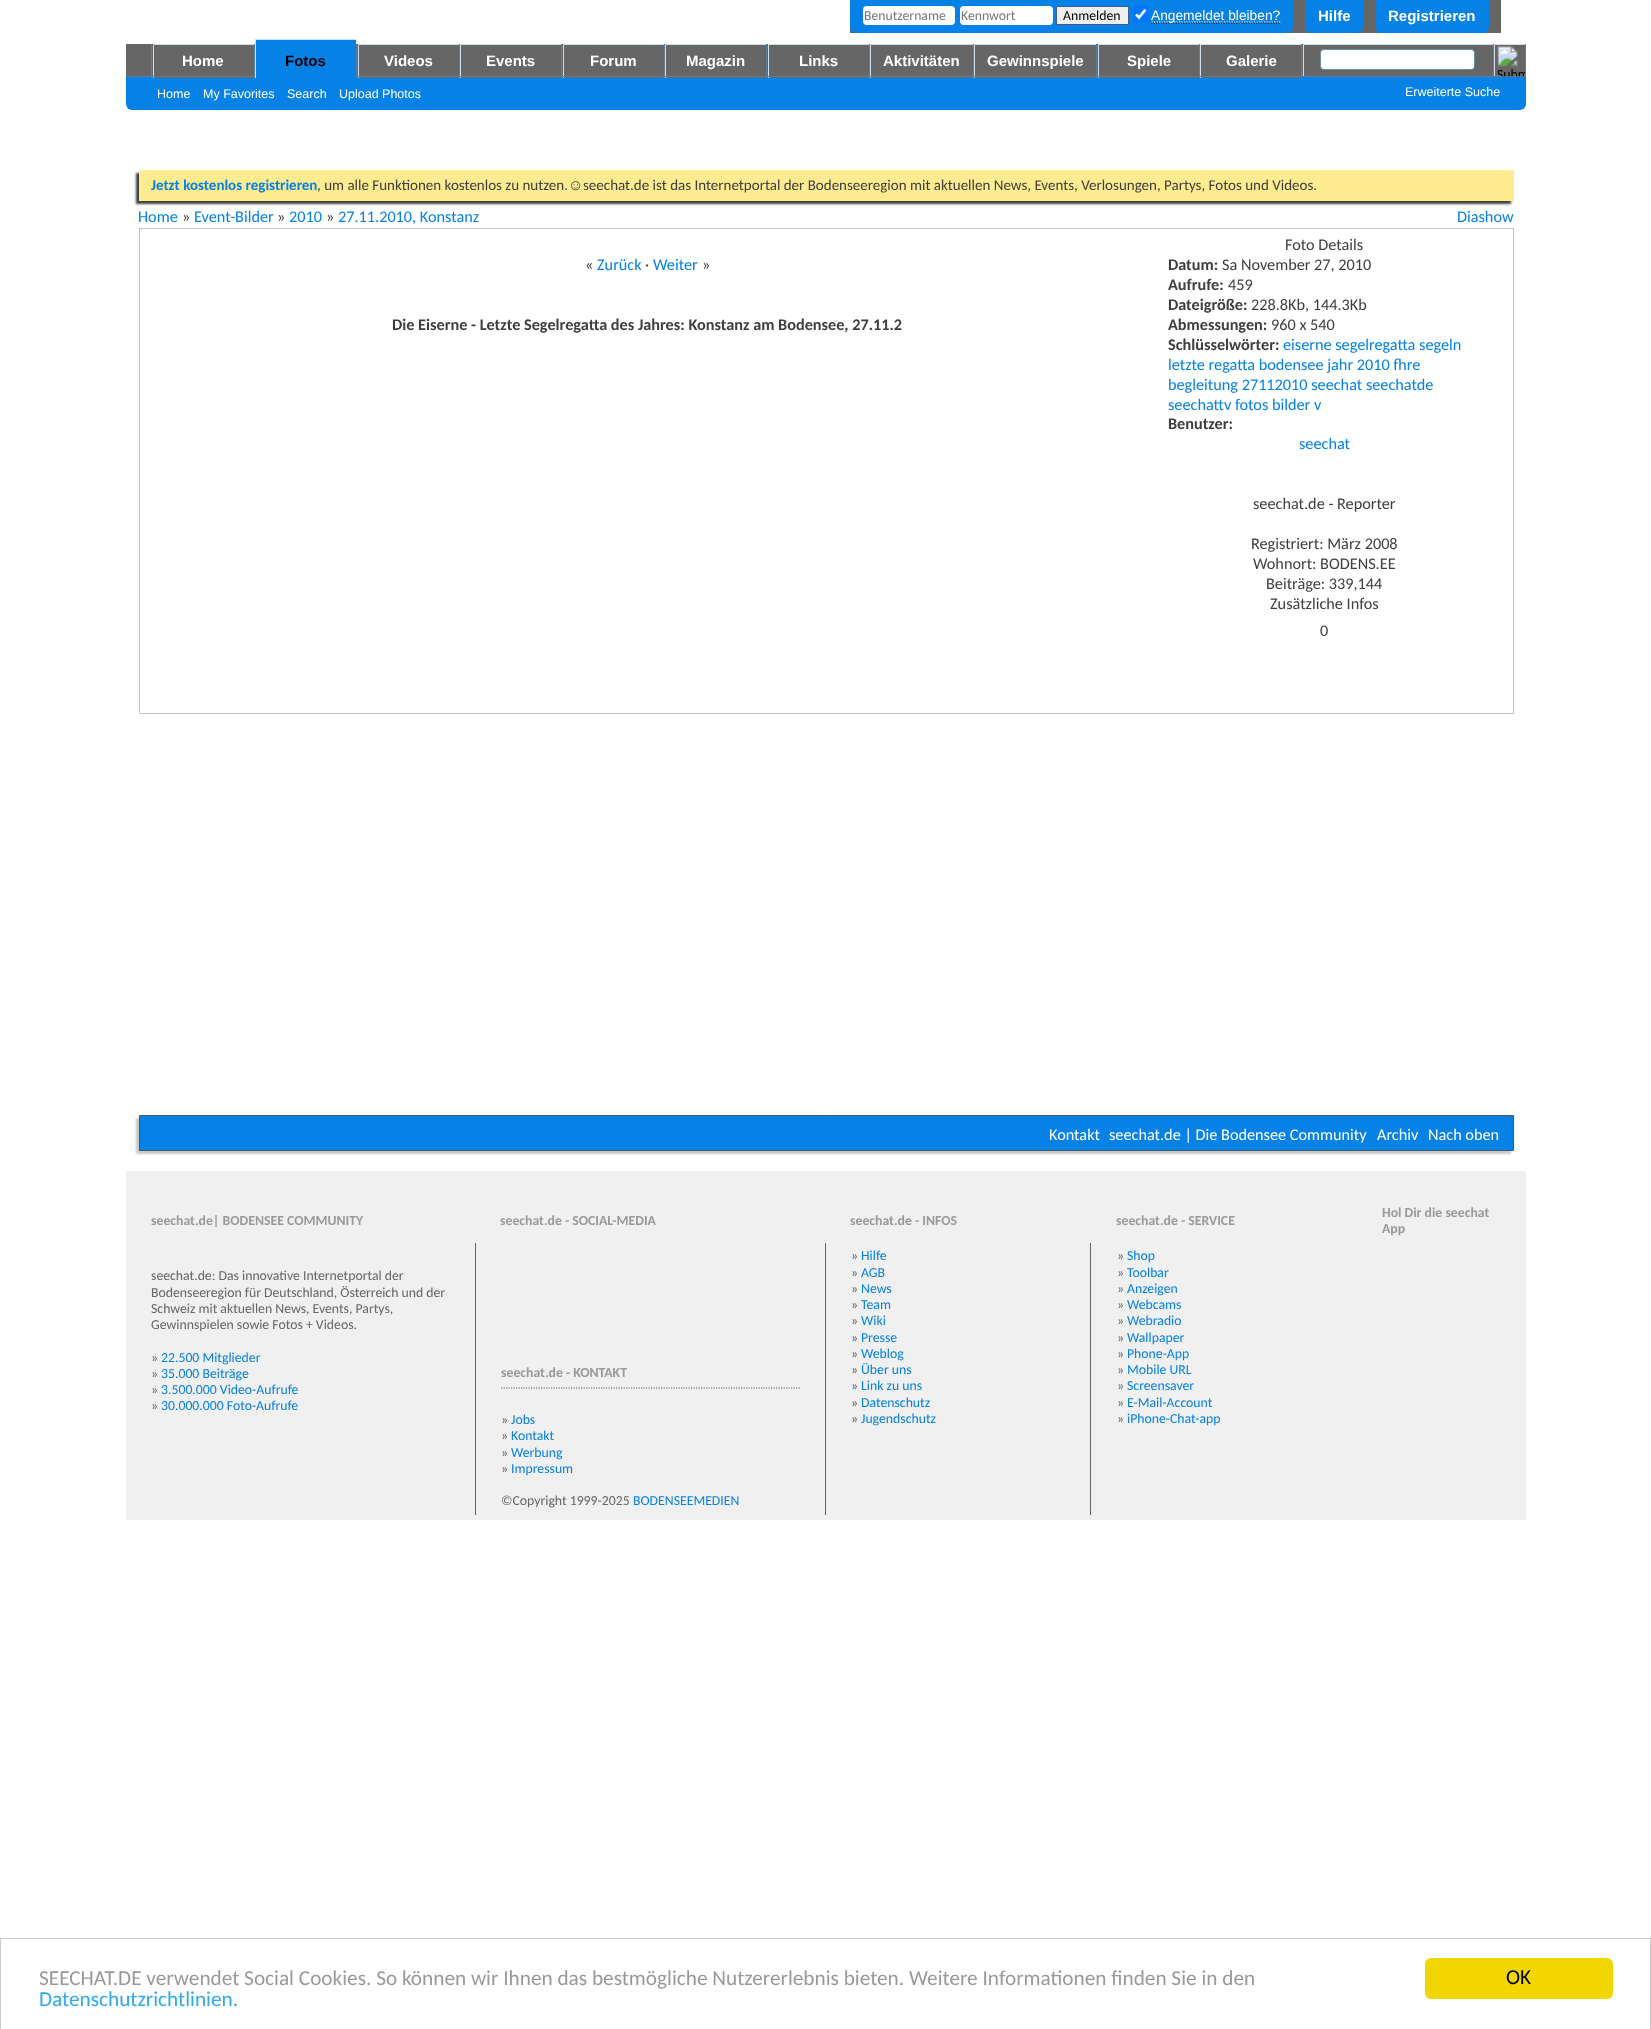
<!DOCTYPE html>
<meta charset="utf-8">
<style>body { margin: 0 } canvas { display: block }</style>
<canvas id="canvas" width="1651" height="2029"></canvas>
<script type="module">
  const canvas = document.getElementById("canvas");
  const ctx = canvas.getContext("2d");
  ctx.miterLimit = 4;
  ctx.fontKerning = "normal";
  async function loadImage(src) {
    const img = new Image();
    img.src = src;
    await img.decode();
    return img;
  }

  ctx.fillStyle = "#ffffff";
  ctx.fillRect(0, 0, 1651, 2029);
  ctx.fillStyle = "#666666";
  ctx.fillRect(850, 0, 651, 33);
  ctx.fillStyle = "#0681e6";
  ctx.beginPath();
  ctx.roundRect(850, 0, 443, 33, [0, 0, 6, 6]);
  ctx.fill();
  ctx.fillStyle = "#ffffff";
  ctx.beginPath();
  ctx.roundRect(863, 6, 92, 19, 4);
  ctx.fill();
  ctx.font = "13.75px Carlito";
  ctx.fillStyle = "#777777";
  ctx.fillText("Benutzername", 864, 20);
  ctx.fillStyle = "#ffffff";
  ctx.beginPath();
  ctx.roundRect(960, 6, 93, 19, 4);
  ctx.fill();
  ctx.fillStyle = "#777777";
  ctx.fillText("Kennwort", 961, 20);
  ctx.fillStyle = "#efefef";
  ctx.beginPath();
  ctx.rect(1056.5, 6.5, 72, 18);
  ctx.fill();
  ctx.strokeStyle = "#415d8d";
  ctx.stroke();
  ctx.fillStyle = "#000000";
  ctx.fillText("Anmelden", 1063, 20);
  ctx.fillStyle = "#0075ff";
  ctx.beginPath();
  ctx.roundRect(1133, 6, 16, 17, 2.5);
  ctx.fill();
  ctx.beginPath();
  ctx.moveTo(1136, 14.5);
  ctx.lineTo(1139, 17.5);
  ctx.lineTo(1145.5, 9.5);
  ctx.strokeStyle = "#ffffff";
  ctx.lineWidth = 2.6;
  ctx.stroke();
  ctx.beginPath();
  ctx.moveTo(1151, 23);
  ctx.lineTo(1280, 23);
  ctx.strokeStyle = "#000000";
  ctx.lineWidth = 1.2;
  ctx.setLineDash([1.25, 1.25]);
  ctx.stroke();
  ctx.beginPath();
  ctx.moveTo(1151.5, 22);
  ctx.lineTo(1280.5, 22);
  ctx.strokeStyle = "#ffffff";
  ctx.stroke();
  ctx.font = "13.75px Liberation Sans";
  ctx.fillStyle = "#ffffff";
  ctx.fillText("Angemeldet bleiben?", 1151, 20);
  ctx.fillStyle = "#0681e6";
  ctx.beginPath();
  ctx.roundRect(1305, 0, 58, 33, [0, 0, 6, 6]);
  ctx.fill();
  ctx.font = "bold 15px Liberation Sans";
  ctx.fillStyle = "#ffffff";
  ctx.fillText("Hilfe", 1318, 21);
  ctx.fillStyle = "#0681e6";
  ctx.beginPath();
  ctx.roundRect(1375, 0, 114, 33, [0, 0, 6, 6]);
  ctx.fill();
  ctx.fillStyle = "#ffffff";
  ctx.fillText("Registrieren", 1388, 21);
  ctx.fillStyle = "#0681e6";
  ctx.beginPath();
  ctx.roundRect(126, 44, 1400, 66, [0, 0, 6, 6]);
  ctx.fill();
  ctx.fillStyle = "#666666";
  ctx.fillRect(126, 44, 1399, 32);
  ctx.fillStyle = "#5a7f97";
  ctx.fillRect(254, 44, 1, 34);
  ctx.fillRect(151, 44, 1, 34);
  ctx.fillStyle = "#666666";
  ctx.fillRect(154, 76, 100, 2);
  ctx.fillStyle = "#cedfeb";
  ctx.fillRect(153, 44, 101, 1);
  ctx.fillRect(153, 44, 1, 34);
  ctx.fillStyle = "#ffffff";
  ctx.fillText("Home", 182, 66);
  ctx.fillStyle = "#5a7f97";
  ctx.fillRect(356, 44, 1, 32);
  ctx.fillRect(459, 44, 1, 34);
  ctx.fillStyle = "#666666";
  ctx.fillRect(359, 76, 100, 2);
  ctx.fillStyle = "#cedfeb";
  ctx.fillRect(358, 44, 101, 1);
  ctx.fillRect(358, 44, 1, 34);
  ctx.fillStyle = "#5a7f97";
  ctx.fillRect(561, 44, 1, 34);
  ctx.fillStyle = "#666666";
  ctx.fillRect(461, 76, 100, 2);
  ctx.fillStyle = "#cedfeb";
  ctx.fillRect(460, 44, 101, 1);
  ctx.fillRect(460, 44, 1, 34);
  ctx.fillStyle = "#5a7f97";
  ctx.fillRect(664, 44, 1, 34);
  ctx.fillStyle = "#666666";
  ctx.fillRect(564, 76, 100, 2);
  ctx.fillStyle = "#cedfeb";
  ctx.fillRect(563, 44, 101, 1);
  ctx.fillRect(563, 44, 1, 34);
  ctx.fillStyle = "#5a7f97";
  ctx.fillRect(766, 44, 1, 34);
  ctx.fillStyle = "#666666";
  ctx.fillRect(666, 76, 100, 2);
  ctx.fillStyle = "#cedfeb";
  ctx.fillRect(665, 44, 101, 1);
  ctx.fillRect(665, 44, 1, 34);
  ctx.fillStyle = "#5a7f97";
  ctx.fillRect(869, 44, 1, 34);
  ctx.fillStyle = "#666666";
  ctx.fillRect(769, 76, 100, 2);
  ctx.fillStyle = "#cedfeb";
  ctx.fillRect(768, 44, 101, 1);
  ctx.fillRect(768, 44, 1, 34);
  ctx.fillStyle = "#5a7f97";
  ctx.fillRect(973, 44, 1, 34);
  ctx.fillStyle = "#666666";
  ctx.fillRect(871, 76, 102, 2);
  ctx.fillStyle = "#cedfeb";
  ctx.fillRect(870, 44, 103, 1);
  ctx.fillRect(870, 44, 1, 34);
  ctx.fillStyle = "#5a7f97";
  ctx.fillRect(1096, 44, 1, 34);
  ctx.fillStyle = "#666666";
  ctx.fillRect(975, 76, 121, 2);
  ctx.fillStyle = "#cedfeb";
  ctx.fillRect(974, 44, 122, 1);
  ctx.fillRect(974, 44, 1, 34);
  ctx.fillStyle = "#5a7f97";
  ctx.fillRect(1199, 44, 1, 34);
  ctx.fillStyle = "#666666";
  ctx.fillRect(1099, 76, 100, 2);
  ctx.fillStyle = "#cedfeb";
  ctx.fillRect(1098, 44, 101, 1);
  ctx.fillRect(1098, 44, 1, 34);
  ctx.fillStyle = "#5a7f97";
  ctx.fillRect(1301, 44, 1, 34);
  ctx.fillStyle = "#666666";
  ctx.fillRect(1201, 76, 100, 2);
  ctx.fillStyle = "#cedfeb";
  ctx.fillRect(1200, 44, 101, 1);
  ctx.fillRect(1200, 44, 1, 34);
  ctx.fillStyle = "#5a7f97";
  ctx.fillRect(126, 76, 1400, 1);
  ctx.fillStyle = "#0681e6";
  ctx.fillRect(256, 40, 100, 37);
  ctx.fillStyle = "#cedfeb";
  ctx.fillRect(255, 39, 101, 1);
  ctx.fillRect(255, 39, 1, 39);
  ctx.fillStyle = "#000000";
  ctx.fillText("Fotos", 285, 66);
  ctx.fillStyle = "#ffffff";
  ctx.fillText("Videos", 384, 66);
  ctx.fillText("Events", 486, 66);
  ctx.fillText("Forum", 590, 66);
  ctx.fillText("Magazin", 686, 66);
  ctx.fillText("Links", 799, 66);
  ctx.fillText("Aktivitäten", 883, 66);
  ctx.fillText("Gewinnspiele", 987, 66);
  ctx.fillText("Spiele", 1127, 66);
  ctx.fillText("Galerie", 1226, 66);
  ctx.font = "12.5px Liberation Sans";
  ctx.fillText("Home", 157, 98);
  ctx.fillText("My Favorites", 203, 98);
  ctx.fillText("Search", 287, 98);
  ctx.fillText("Upload Photos", 339, 98);
  ctx.fillStyle = "#cedfeb";
  ctx.fillRect(1303, 44, 190, 1);
  ctx.fillRect(1303, 44, 1, 32);
  ctx.fillStyle = "#ffffff";
  ctx.beginPath();
  ctx.roundRect(1320.5, 49.5, 154, 20, 3.5);
  ctx.fill();
  ctx.strokeStyle = "#6b91ab";
  ctx.lineWidth = 1;
  ctx.setLineDash([]);
  ctx.stroke();
  ctx.fillStyle = "#5a7f97";
  ctx.fillRect(1525, 44, 1, 32);
  ctx.fillRect(1493, 44, 1, 32);
  ctx.fillStyle = "#cedfeb";
  ctx.fillRect(1494, 44, 31, 1);
  ctx.fillRect(1494, 44, 1, 32);
  ctx.drawImage(await loadImage("img1.png"), 1497, 46, 28, 31);
  ctx.fillStyle = "#ffffff";
  ctx.fillText("Erweiterte Suche", 1405, 96);
  ctx.fillStyle = "#3e3e3e";
  ctx.filter = "blur(1px)";
  ctx.beginPath();
  ctx.rect(136, 173, 1375, 31);
  ctx.fill();
  ctx.filter = "none";
  ctx.fillStyle = "#ffeb90";
  ctx.fillRect(139, 170, 1375, 31);
  ctx.font = "bold 15px Carlito";
  ctx.fillStyle = "#0681e6";
  ctx.fillText("Jetzt kostenlos registrieren", 151, 190);
  ctx.font = "15px Carlito";
  ctx.fillStyle = "#3e3e3e";
  ctx.fillText(", um alle Funktionen kostenlos zu nutzen.", 317, 190);
  ctx.font = "15px Liberation Sans";
  ctx.fillText("☺", 568, 190);
  ctx.font = "15px Carlito";
  ctx.fillText("seechat.de ist das Internetportal der Bodenseeregion mit aktuellen News, Events, Verlosungen, Partys, Fotos und Videos.", 583, 190);
  ctx.font = "16.25px Carlito";
  ctx.fillStyle = "#0681e6";
  ctx.fillText("Home", 138, 222);
  ctx.fillStyle = "#3e3e3e";
  ctx.fillText("»", 182, 222);
  ctx.fillStyle = "#0681e6";
  ctx.fillText("Event-Bilder", 194, 222);
  ctx.fillStyle = "#3e3e3e";
  ctx.fillText("»", 277, 222);
  ctx.fillStyle = "#0681e6";
  ctx.fillText("2010", 289, 222);
  ctx.fillStyle = "#3e3e3e";
  ctx.fillText("»", 326, 222);
  ctx.fillStyle = "#0681e6";
  ctx.fillText("27.11.2010, Konstanz", 338, 222);
  ctx.fillText("Diashow", 1457, 222);
  ctx.fillStyle = "#c4c4c4";
  ctx.fillRect(139, 228, 1375, 1);
  ctx.fillRect(1513, 228, 1, 486);
  ctx.fillRect(139, 713, 1375, 1);
  ctx.fillRect(139, 228, 1, 486);
  ctx.fillStyle = "#3e3e3e";
  ctx.fillText("«", 585, 270);
  ctx.fillStyle = "#0681e6";
  ctx.fillText("Zurück", 597, 270);
  ctx.fillStyle = "#3e3e3e";
  ctx.fillText("·", 645, 270);
  ctx.fillStyle = "#0681e6";
  ctx.fillText("Weiter", 653, 270);
  ctx.fillStyle = "#3e3e3e";
  ctx.fillText("»", 702, 270);
  ctx.font = "bold 16.25px Carlito";
  ctx.fillText("Die Eiserne - Letzte Segelregatta des Jahres: Konstanz am Bodensee, 27.11.2", 392, 330);
  ctx.font = "16.25px Carlito";
  ctx.fillText("Foto Details", 1285, 250);
  ctx.font = "bold 16.25px Carlito";
  ctx.fillText("Datum:", 1168, 270);
  ctx.font = "16.25px Carlito";
  ctx.fillText("Sa November 27, 2010", 1222, 270);
  ctx.font = "bold 16.25px Carlito";
  ctx.fillText("Aufrufe:", 1168, 290);
  ctx.font = "16.25px Carlito";
  ctx.fillText("459", 1228, 290);
  ctx.font = "bold 16.25px Carlito";
  ctx.fillText("Dateigröße:", 1168, 310);
  ctx.font = "16.25px Carlito";
  ctx.fillText("228.8Kb, 144.3Kb", 1251, 310);
  ctx.font = "bold 16.25px Carlito";
  ctx.fillText("Abmessungen:", 1168, 330);
  ctx.font = "16.25px Carlito";
  ctx.fillText("960 x 540", 1271, 330);
  ctx.font = "bold 16.25px Carlito";
  ctx.fillText("Schlüsselwörter:", 1168, 350);
  ctx.font = "16.25px Carlito";
  ctx.fillStyle = "#0681e6";
  ctx.fillText("eiserne segelregatta segeln", 1283, 350);
  ctx.fillText("letzte regatta bodensee jahr 2010 fhre", 1168, 370);
  ctx.fillText("begleitung 27112010 seechat seechatde", 1168, 390);
  ctx.fillText("seechattv fotos bilder v", 1168, 410);
  ctx.font = "bold 16.25px Carlito";
  ctx.fillStyle = "#3e3e3e";
  ctx.fillText("Benutzer:", 1168, 429);
  ctx.font = "16.25px Carlito";
  ctx.fillStyle = "#0681e6";
  ctx.fillText("seechat", 1299, 449);
  ctx.fillStyle = "#3e3e3e";
  ctx.fillText("seechat.de - Reporter", 1253, 509);
  ctx.fillText("Registriert: März 2008", 1251, 549);
  ctx.fillText("Wohnort: BODENS.EE", 1253, 569);
  ctx.fillText("Beiträge: 339,144", 1266, 589);
  ctx.fillText("Zusätzliche Infos", 1270, 609);
  ctx.fillText("0", 1320, 636);
  ctx.fillStyle = "#c8c8c8";
  ctx.filter = "blur(1px)";
  ctx.beginPath();
  ctx.rect(136, 1118, 1375, 36);
  ctx.fill();
  ctx.filter = "none";
  ctx.fillStyle = "#0681e6";
  ctx.beginPath();
  ctx.rect(139.5, 1115.5, 1374, 35);
  ctx.fill();
  ctx.strokeStyle = "#425769";
  ctx.stroke();
  ctx.fillStyle = "#ffffff";
  ctx.fillText("Kontakt", 1049, 1140);
  ctx.fillText("seechat.de | Die Bodensee Community", 1109, 1140);
  ctx.fillText("Archiv", 1377, 1140);
  ctx.fillText("Nach oben", 1428, 1140);
  ctx.fillStyle = "#f0f0f0";
  ctx.fillRect(126, 1171, 1400, 349);
  ctx.font = "bold 13.75px Carlito";
  ctx.fillStyle = "#999999";
  ctx.fillText("seechat.de| BODENSEE COMMUNITY", 151, 1225);
  ctx.fillText("seechat.de - SOCIAL-MEDIA", 500, 1225);
  ctx.fillText("seechat.de - INFOS", 850, 1225);
  ctx.fillText("seechat.de - SERVICE", 1116, 1225);
  ctx.fillText("Hol Dir die seechat", 1382, 1217);
  ctx.fillText("App", 1382, 1233);
  ctx.fillStyle = "#666666";
  ctx.fillRect(475, 1243, 1, 272);
  ctx.font = "13.75px Carlito";
  ctx.fillText("seechat.de: Das innovative Internetportal der", 151, 1280);
  ctx.fillText("Bodenseeregion für Deutschland, Österreich und der", 151, 1297);
  ctx.fillText("Schweiz mit aktuellen News, Events, Partys,", 151, 1313);
  ctx.fillText("Gewinnspielen sowie Fotos + Videos.", 151, 1329);
  ctx.fillText("»", 151, 1362);
  ctx.fillStyle = "#0681e6";
  ctx.fillText("22.500 Mitglieder", 161, 1362);
  ctx.fillStyle = "#666666";
  ctx.fillText("»", 151, 1378);
  ctx.fillStyle = "#0681e6";
  ctx.fillText("35.000 Beiträge", 161, 1378);
  ctx.fillStyle = "#666666";
  ctx.fillText("»", 151, 1394);
  ctx.fillStyle = "#0681e6";
  ctx.fillText("3.500.000 Video-Aufrufe", 161, 1394);
  ctx.fillStyle = "#666666";
  ctx.fillText("»", 151, 1410);
  ctx.fillStyle = "#0681e6";
  ctx.fillText("30.000.000 Foto-Aufrufe", 161, 1410);
  ctx.fillStyle = "#666666";
  ctx.fillRect(1090, 1243, 1, 272);
  ctx.fillText("»", 851, 1260);
  ctx.fillStyle = "#0681e6";
  ctx.fillText("Hilfe", 861, 1260);
  ctx.fillStyle = "#666666";
  ctx.fillText("»", 851, 1277);
  ctx.fillStyle = "#0681e6";
  ctx.fillText("AGB", 861, 1277);
  ctx.fillStyle = "#666666";
  ctx.fillText("»", 851, 1293);
  ctx.fillStyle = "#0681e6";
  ctx.fillText("News", 861, 1293);
  ctx.fillStyle = "#666666";
  ctx.fillText("»", 851, 1309);
  ctx.fillStyle = "#0681e6";
  ctx.fillText("Team", 861, 1309);
  ctx.fillStyle = "#666666";
  ctx.fillText("»", 851, 1325);
  ctx.fillStyle = "#0681e6";
  ctx.fillText("Wiki", 861, 1325);
  ctx.fillStyle = "#666666";
  ctx.fillText("»", 851, 1342);
  ctx.fillStyle = "#0681e6";
  ctx.fillText("Presse", 861, 1342);
  ctx.fillStyle = "#666666";
  ctx.fillText("»", 851, 1358);
  ctx.fillStyle = "#0681e6";
  ctx.fillText("Weblog", 861, 1358);
  ctx.fillStyle = "#666666";
  ctx.fillText("»", 851, 1374);
  ctx.fillStyle = "#0681e6";
  ctx.fillText("Über uns", 861, 1374);
  ctx.fillStyle = "#666666";
  ctx.fillText("»", 851, 1390);
  ctx.fillStyle = "#0681e6";
  ctx.fillText("Link zu uns", 861, 1390);
  ctx.fillStyle = "#666666";
  ctx.fillText("»", 851, 1407);
  ctx.fillStyle = "#0681e6";
  ctx.fillText("Datenschutz", 861, 1407);
  ctx.fillStyle = "#666666";
  ctx.fillText("»", 851, 1423);
  ctx.fillStyle = "#0681e6";
  ctx.fillText("Jugendschutz", 861, 1423);
  ctx.fillStyle = "#666666";
  ctx.fillText("»", 1117, 1260);
  ctx.fillStyle = "#0681e6";
  ctx.fillText("Shop", 1127, 1260);
  ctx.fillStyle = "#666666";
  ctx.fillText("»", 1117, 1277);
  ctx.fillStyle = "#0681e6";
  ctx.fillText("Toolbar", 1127, 1277);
  ctx.fillStyle = "#666666";
  ctx.fillText("»", 1117, 1293);
  ctx.fillStyle = "#0681e6";
  ctx.fillText("Anzeigen", 1127, 1293);
  ctx.fillStyle = "#666666";
  ctx.fillText("»", 1117, 1309);
  ctx.fillStyle = "#0681e6";
  ctx.fillText("Webcams", 1127, 1309);
  ctx.fillStyle = "#666666";
  ctx.fillText("»", 1117, 1325);
  ctx.fillStyle = "#0681e6";
  ctx.fillText("Webradio", 1127, 1325);
  ctx.fillStyle = "#666666";
  ctx.fillText("»", 1117, 1342);
  ctx.fillStyle = "#0681e6";
  ctx.fillText("Wallpaper", 1127, 1342);
  ctx.fillStyle = "#666666";
  ctx.fillText("»", 1117, 1358);
  ctx.fillStyle = "#0681e6";
  ctx.fillText("Phone-App", 1127, 1358);
  ctx.fillStyle = "#666666";
  ctx.fillText("»", 1117, 1374);
  ctx.fillStyle = "#0681e6";
  ctx.fillText("Mobile URL", 1127, 1374);
  ctx.fillStyle = "#666666";
  ctx.fillText("»", 1117, 1390);
  ctx.fillStyle = "#0681e6";
  ctx.fillText("Screensaver", 1127, 1390);
  ctx.fillStyle = "#666666";
  ctx.fillText("»", 1117, 1407);
  ctx.fillStyle = "#0681e6";
  ctx.fillText("E-Mail-Account", 1127, 1407);
  ctx.fillStyle = "#666666";
  ctx.fillText("»", 1117, 1423);
  ctx.fillStyle = "#0681e6";
  ctx.fillText("iPhone-Chat-app", 1127, 1423);
  ctx.fillStyle = "#666666";
  ctx.fillRect(825, 1243, 1, 272);
  ctx.font = "bold 13.75px Carlito";
  ctx.fillStyle = "#999999";
  ctx.fillText("seechat.de - KONTAKT", 501, 1377);
  ctx.beginPath();
  ctx.moveTo(501, 1388);
  ctx.lineTo(800, 1388);
  ctx.strokeStyle = "#666666";
  ctx.lineWidth = 1.2;
  ctx.setLineDash([1.25, 1.25]);
  ctx.stroke();
  ctx.font = "13.75px Carlito";
  ctx.fillStyle = "#666666";
  ctx.fillText("»", 501, 1424);
  ctx.fillStyle = "#0681e6";
  ctx.fillText("Jobs", 511, 1424);
  ctx.fillStyle = "#666666";
  ctx.fillText("»", 501, 1440);
  ctx.fillStyle = "#0681e6";
  ctx.fillText("Kontakt", 511, 1440);
  ctx.fillStyle = "#666666";
  ctx.fillText("»", 501, 1457);
  ctx.fillStyle = "#0681e6";
  ctx.fillText("Werbung", 511, 1457);
  ctx.fillStyle = "#666666";
  ctx.fillText("»", 501, 1473);
  ctx.fillStyle = "#0681e6";
  ctx.fillText("Impressum", 511, 1473);
  ctx.fillStyle = "#666666";
  ctx.fillText("©Copyright 1999-2025", 501, 1505);
  ctx.fillStyle = "#0681e6";
  ctx.fillText("BODENSEEMEDIEN", 633, 1505);
  ctx.strokeStyle = "#cccccc";
  ctx.lineWidth = 1;
  ctx.setLineDash([]);
  ctx.strokeRect(0.5, 1938.5, 1650, 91);
  ctx.font = "21.25px Carlito";
  ctx.fillStyle = "#999999";
  ctx.fillText("SEECHAT.DE verwendet Social Cookies. So können wir Ihnen das bestmögliche Nutzererlebnis bieten. Weitere Informationen finden Sie in den", 39, 1985);
  ctx.fillStyle = "#31a8f0";
  ctx.fillText("Datenschutzrichtlinien.", 39, 2006);
  ctx.fillStyle = "#f1d600";
  ctx.beginPath();
  ctx.roundRect(1425, 1958, 188, 41, 6);
  ctx.fill();
  ctx.fillStyle = "#000000";
  ctx.fillText("OK", 1506, 1984);
</script>
